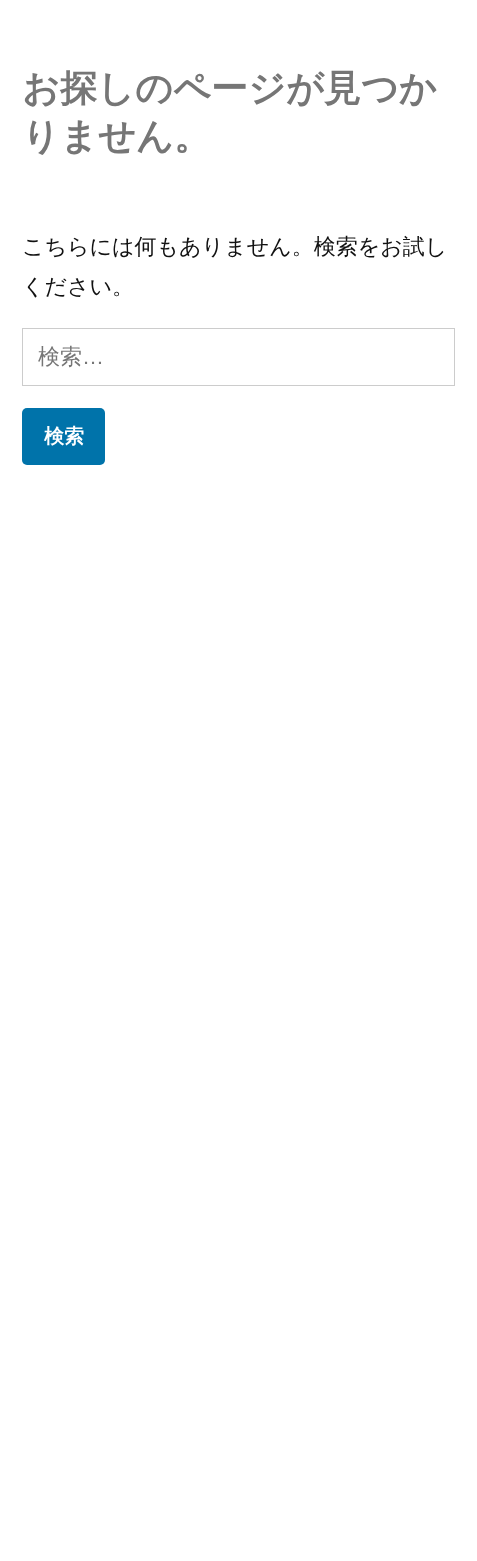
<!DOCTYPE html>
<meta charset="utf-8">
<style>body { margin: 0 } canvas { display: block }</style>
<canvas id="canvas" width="477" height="1561"></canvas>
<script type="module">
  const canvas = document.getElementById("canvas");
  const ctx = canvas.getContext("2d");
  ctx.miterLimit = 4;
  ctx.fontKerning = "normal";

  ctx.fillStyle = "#ffffff";
  ctx.fillRect(0, 0, 477, 1561);
  ctx.font = "bold 37.1px WenQuanYi Zen Hei";
  ctx.fillStyle = "#767676";
  ctx.fillText("お探しのページが見つか", 22, 101);
  ctx.fillText("りません。", 22, 149);
  ctx.font = "500 22px WenQuanYi Zen Hei";
  ctx.fillStyle = "#111111";
  ctx.fillText("こちらには何もありません。検索をお試し", 22, 254);
  ctx.fillText("ください。", 22, 294);
  ctx.strokeStyle = "#cccccc";
  ctx.strokeRect(22.5, 328.5, 432, 57);
  ctx.fillStyle = "#767676";
  ctx.fillText("検索", 38, 364);
  ctx.font = "22px Liberation Sans";
  ctx.fillText("…", 82, 364);
  ctx.fillStyle = "#0073aa";
  ctx.beginPath();
  ctx.roundRect(22, 408, 83, 57, 5);
  ctx.fill();
  ctx.font = "bold 20px WenQuanYi Zen Hei";
  ctx.fillStyle = "#ffffff";
  ctx.fillText("検索", 44, 443);
</script>
